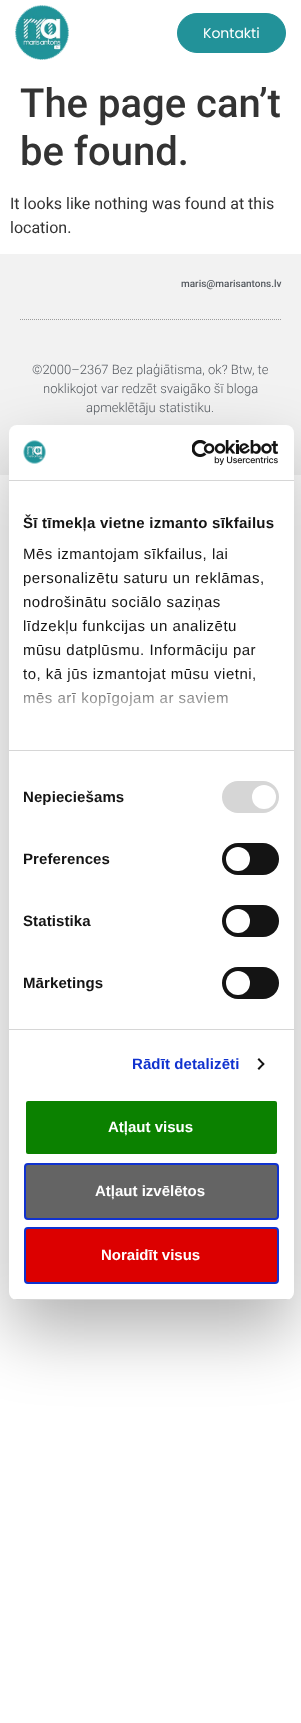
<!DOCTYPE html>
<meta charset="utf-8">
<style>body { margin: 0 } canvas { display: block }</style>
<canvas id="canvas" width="301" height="1723"></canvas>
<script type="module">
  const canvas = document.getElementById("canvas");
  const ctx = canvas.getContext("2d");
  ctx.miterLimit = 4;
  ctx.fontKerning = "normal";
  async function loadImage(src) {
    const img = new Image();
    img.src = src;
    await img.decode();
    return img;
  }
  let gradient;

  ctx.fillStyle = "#ffffff";
  ctx.fillRect(0, 0, 301, 1723);
  ctx.drawImage(await loadImage("img1.png"), 15, 5, 54, 55);
  ctx.fillStyle = "#229299";
  ctx.beginPath();
  ctx.roundRect(177.5, 13.5, 108, 39, 19.5);
  ctx.fill();
  ctx.strokeStyle = "#229299";
  ctx.stroke();
  ctx.font = "14px Poppins";
  ctx.fillStyle = "#ffffff";
  ctx.fillText("Kontakti", 203, 38);
  ctx.font = "500 40px Roboto";
  ctx.fillStyle = "#333333";
  ctx.fillText("The page can’t", 20, 117);
  ctx.fillText("be found.", 20, 165);
  ctx.font = "16px Roboto";
  ctx.fillText("It looks like nothing was found at this", 10, 209);
  ctx.fillText("location.", 10, 233);
  ctx.fillStyle = "#f2f2f2";
  ctx.fillRect(0, 254, 301, 221);
  ctx.beginPath();
  ctx.moveTo(20, 319.5);
  ctx.lineTo(281, 319.5);
  ctx.strokeStyle = "#9b9b9b";
  ctx.setLineDash([1, 1]);
  ctx.stroke();
  ctx.font = "500 10px Roboto";
  ctx.fillStyle = "#54595f";
  ctx.fillText("maris@marisantons.lv", 181, 287);
  ctx.font = "300 13px Roboto";
  ctx.fillText("©2000–2367 Bez plaģiātisma, ok? Btw, te", 32, 374);
  ctx.fillText("noklikojot var redzēt svaigāko šī bloga", 43, 393);
  ctx.fillText("apmeklētāju statistiku.", 86, 412);
  ctx.fillStyle = "rgba(0, 0, 0, 0.3)";
  ctx.filter = "blur(34px)";
  ctx.beginPath();
  ctx.roundRect(9, 457, 285, 875, 8);
  ctx.fill();
  ctx.filter = "none";
  ctx.fillStyle = "#ffffff";
  ctx.beginPath();
  ctx.roundRect(9, 425, 285, 875, 8);
  ctx.fill();
  ctx.fillStyle = "#d6d6d6";
  ctx.fillRect(9, 480, 285, 1);
  ctx.drawImage(await loadImage("img2.png"), 23, 440, 23, 24);
  ctx.drawImage(await loadImage("img3.png"), 192, 440, 87, 25);
  ctx.fillRect(9, 750, 285, 1);
  ctx.letterSpacing = "0.25px";
  ctx.font = "bold 15px Liberation Sans";
  ctx.fillStyle = "#141414";
  ctx.fillText("Šī tīmekļa vietne izmanto sīkfailus", 23, 528);
  ctx.letterSpacing = "0.5px";
  ctx.font = "15px Liberation Sans";
  ctx.fillText("Mēs izmantojam sīkfailus, lai", 23, 559);
  ctx.fillText("personalizētu saturu un reklāmas,", 23, 583);
  ctx.fillText("nodrošinātu sociālo saziņas", 23, 607);
  ctx.fillText("līdzekļu funkcijas un analizētu", 23, 631);
  ctx.fillText("mūsu datplūsmu. Informāciju par", 23, 655);
  ctx.fillText("to, kā jūs izmantojat mūsu vietni,", 23, 679);
  ctx.fillText("mēs arī kopīgojam ar saviem", 23, 703);
  gradient = ctx.createLinearGradient(145, 750, 145, 675);
  gradient.addColorStop(0, "#ffffff");
  gradient.addColorStop(0.5, "rgba(255, 255, 255, 0.8)");
  gradient.addColorStop(1, "rgba(255, 255, 255, 0)");
  ctx.fillStyle = gradient;
  ctx.fillRect(24, 676, 231, 31);
  ctx.fillStyle = "#d6d6d6";
  ctx.fillRect(9, 1029, 285, 1);
  ctx.letterSpacing = "0.1px";
  ctx.font = "bold 15px Liberation Sans";
  ctx.fillStyle = "#141414";
  ctx.fillText("Nepieciešams", 23, 802);
  ctx.fillStyle = "#d6d6d6";
  ctx.beginPath();
  ctx.roundRect(222, 781, 57, 32, 16);
  ctx.fill();
  ctx.fillStyle = "#ffffff";
  ctx.beginPath();
  ctx.arc(264, 797, 12, 0, Math.PI * 2);
  ctx.fill();
  ctx.fillStyle = "#141414";
  ctx.fillText("Preferences", 23, 864);
  ctx.beginPath();
  ctx.roundRect(222, 843, 57, 32, 16);
  ctx.fill();
  ctx.fillStyle = "#ffffff";
  ctx.beginPath();
  ctx.arc(238, 859, 12, 0, Math.PI * 2);
  ctx.fill();
  ctx.fillStyle = "#141414";
  ctx.fillText("Statistika", 23, 926);
  ctx.beginPath();
  ctx.roundRect(222, 905, 57, 32, 16);
  ctx.fill();
  ctx.fillStyle = "#ffffff";
  ctx.beginPath();
  ctx.arc(238, 921, 12, 0, Math.PI * 2);
  ctx.fill();
  ctx.fillStyle = "#141414";
  ctx.fillText("Mārketings", 23, 988);
  ctx.beginPath();
  ctx.roundRect(222, 967, 57, 32, 16);
  ctx.fill();
  ctx.fillStyle = "#ffffff";
  ctx.beginPath();
  ctx.arc(238, 983, 12, 0, Math.PI * 2);
  ctx.fill();
  ctx.fillStyle = "#1032cf";
  ctx.fillText("Rādīt detalizēti", 132, 1069);
  ctx.fillStyle = "#141414";
  ctx.beginPath();
  ctx.moveTo(259, 1058);
  ctx.lineTo(264.5, 1064);
  ctx.lineTo(263.5, 1065.5);
  ctx.lineTo(257.5, 1059.5);
  ctx.closePath();
  ctx.fill();
  ctx.beginPath();
  ctx.moveTo(263.5, 1062.5);
  ctx.lineTo(264.5, 1064);
  ctx.lineTo(259, 1070);
  ctx.lineTo(257.5, 1068.5);
  ctx.closePath();
  ctx.fill();
  ctx.save();
  ctx.beginPath();
  ctx.roundRect(9, 425, 285, 875, 8);
  ctx.clip();
  ctx.fillStyle = "#d6d6d6";
  ctx.fillRect(9, 1299, 285, 1);
  ctx.restore();
  ctx.fillStyle = "#0b8100";
  ctx.beginPath();
  ctx.roundRect(25, 1100, 253, 55, 3);
  ctx.fill();
  ctx.strokeStyle = "#ffffff";
  ctx.lineWidth = 2;
  ctx.setLineDash([]);
  ctx.stroke();
  ctx.letterSpacing = "0px";
  ctx.fillStyle = "#ffffff";
  ctx.fillText("Atļaut visus", 108, 1132);
  ctx.fillStyle = "#646464";
  ctx.beginPath();
  ctx.roundRect(25, 1164, 253, 55, 3);
  ctx.fill();
  ctx.strokeStyle = "#1032cf";
  ctx.stroke();
  ctx.fillStyle = "#ffffff";
  ctx.fillText("Atļaut izvēlētos", 95, 1196);
  ctx.fillStyle = "#dc0000";
  ctx.beginPath();
  ctx.roundRect(25, 1228, 253, 55, 3);
  ctx.fill();
  ctx.stroke();
  ctx.fillStyle = "#ffffff";
  ctx.fillText("Noraidīt visus", 101, 1260);
</script>
